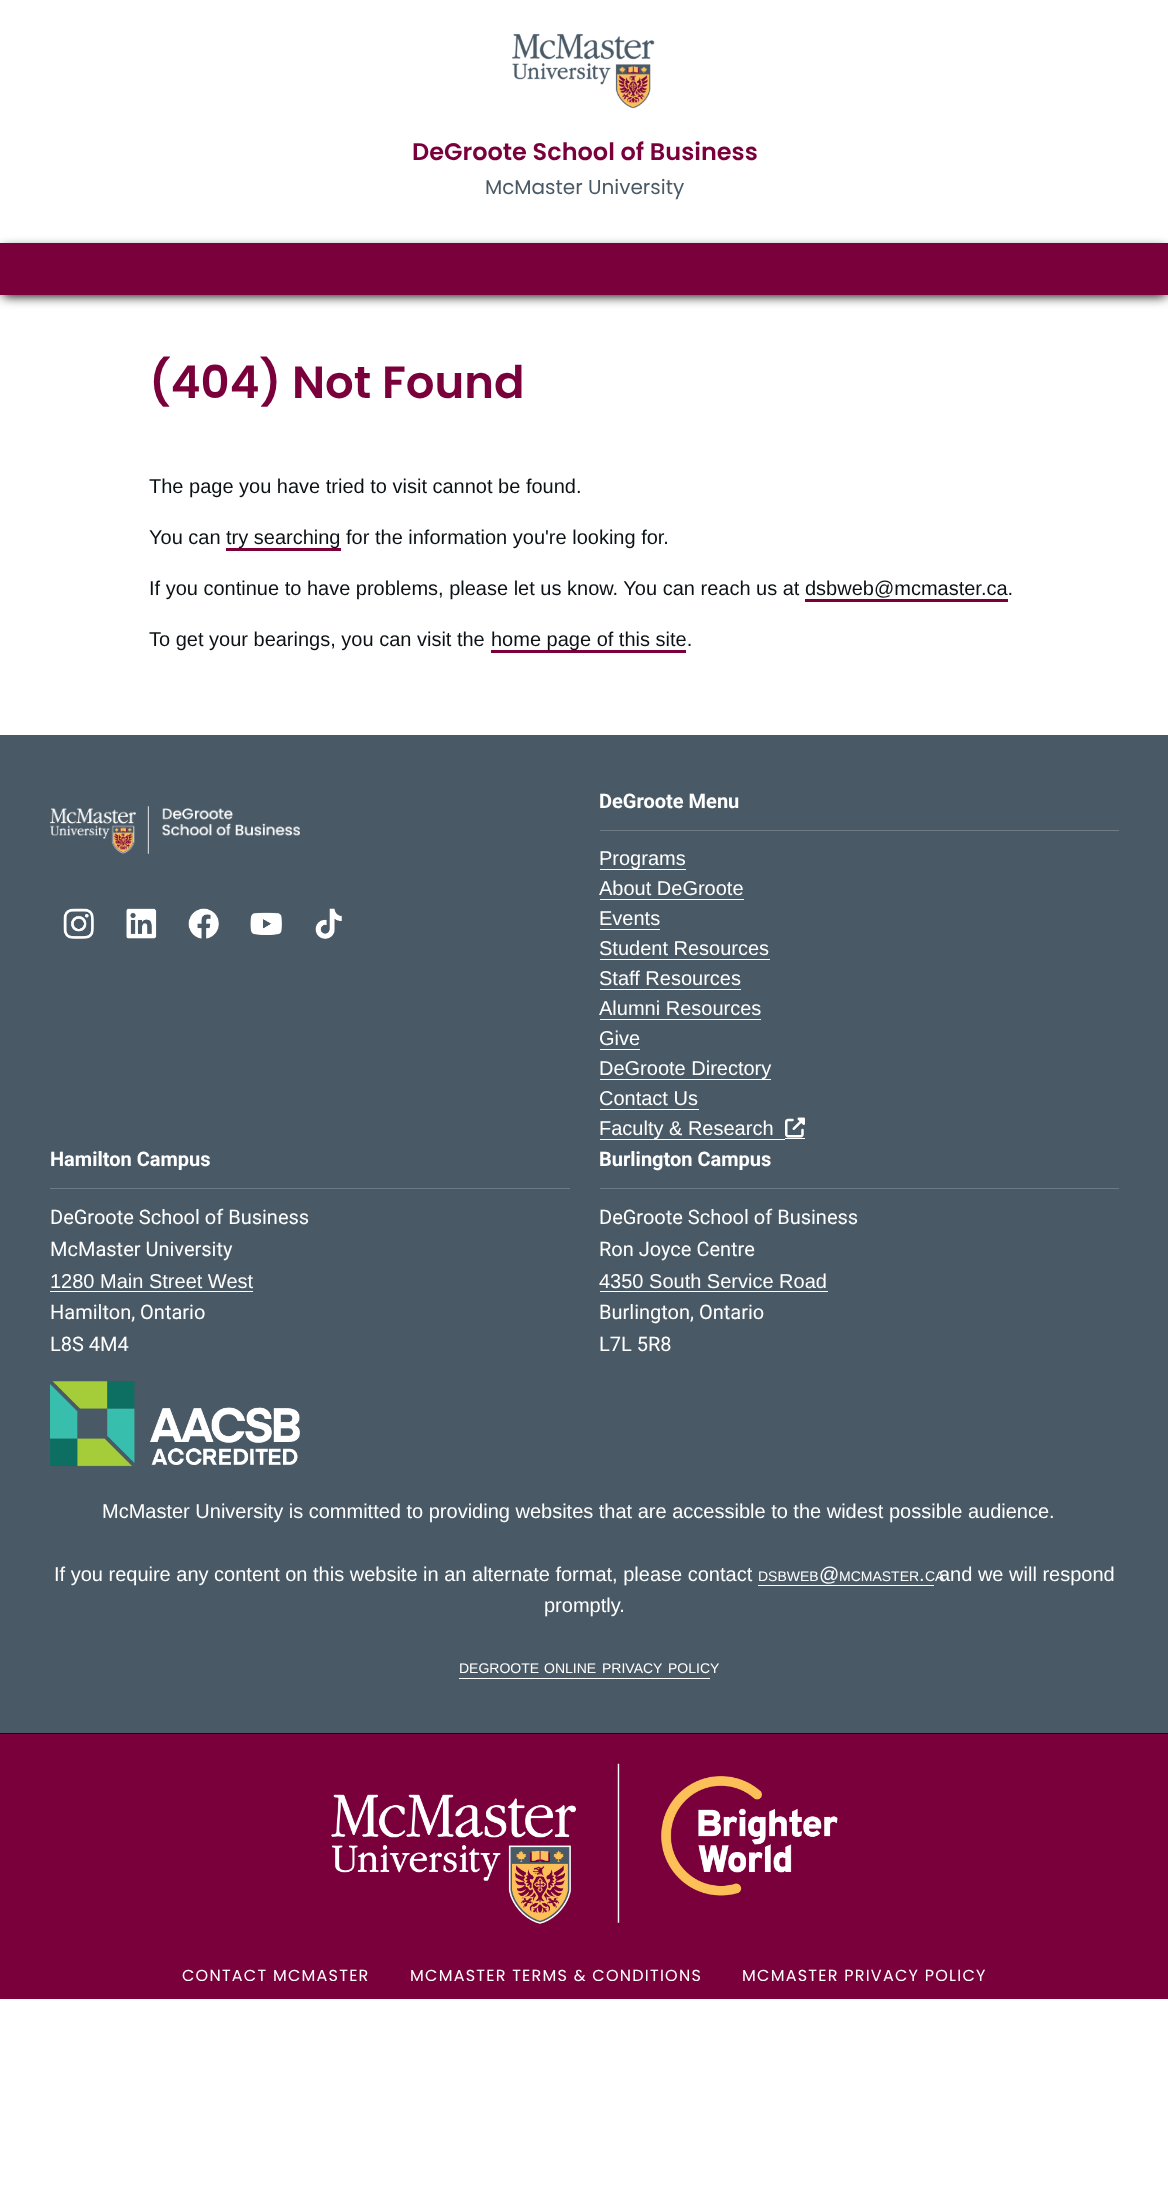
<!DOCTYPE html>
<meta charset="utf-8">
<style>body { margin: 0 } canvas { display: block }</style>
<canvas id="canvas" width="1168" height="2201"></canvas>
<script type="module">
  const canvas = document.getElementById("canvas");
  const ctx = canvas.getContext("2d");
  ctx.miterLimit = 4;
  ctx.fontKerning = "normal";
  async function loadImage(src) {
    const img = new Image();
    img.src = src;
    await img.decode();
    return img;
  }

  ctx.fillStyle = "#ffffff";
  ctx.fillRect(0, 0, 1168, 2201);
  ctx.drawImage(await loadImage("img1.png"), 512, 33, 143, 76);
  ctx.font = "600 24px Poppins";
  ctx.fillStyle = "#7a003c";
  ctx.fillText("DeGroote School of Business", 412, 160);
  ctx.font = "20px Poppins";
  ctx.fillStyle = "#495965";
  ctx.fillText("McMaster University", 485, 194);
  ctx.fillStyle = "#000000";
  ctx.filter = "blur(6px)";
  ctx.beginPath();
  ctx.rect(3, 249, 1163, 47);
  ctx.fill();
  ctx.filter = "none";
  ctx.fillStyle = "#7a003c";
  ctx.fillRect(0, 243, 1168, 52);
  ctx.font = "600 45px Poppins";
  ctx.fillText("(404) Not Found", 149, 398);
  ctx.font = "20px Liberation Sans";
  ctx.fillStyle = "#0b1215";
  ctx.fillText("The page you have tried to visit cannot be found.", 149, 493);
  ctx.fillText("You can", 149, 544);
  ctx.fillStyle = "#7a003c";
  ctx.fillRect(226, 548, 115, 3);
  ctx.fillStyle = "#0b1215";
  ctx.fillText("try searching for the information you're looking for.", 226, 544);
  ctx.fillText("If you continue to have problems, please let us know. You can reach us at dsbweb@mcmaster.ca.", 149, 595);
  ctx.fillStyle = "#7a003c";
  ctx.fillRect(805, 599, 203, 3);
  ctx.fillStyle = "#0b1215";
  ctx.fillText("To get your bearings, you can visit the", 149, 646);
  ctx.fillStyle = "#7a003c";
  ctx.fillRect(491, 650, 195, 3);
  ctx.fillStyle = "#0b1215";
  ctx.fillText("home page of this site.", 491, 646);
  ctx.fillStyle = "#495965";
  ctx.fillRect(0, 735, 1168, 998);
  ctx.fillStyle = "#0b1215";
  ctx.fillRect(0, 1733, 1168, 1);
  ctx.drawImage(await loadImage("img2.png"), 50, 806, 250, 48);
  ctx.drawImage(await loadImage("img3.png"), 63, 908, 31, 31);
  ctx.drawImage(await loadImage("img4.png"), 126, 908, 31, 31);
  ctx.drawImage(await loadImage("img5.png"), 188, 908, 31, 31);
  ctx.drawImage(await loadImage("img6.png"), 250, 912, 32, 23);
  ctx.drawImage(await loadImage("img7.png"), 315, 908, 27, 31);
  ctx.font = "bold 20px Roboto";
  ctx.fillStyle = "#ffffff";
  ctx.fillText("DeGroote Menu", 599, 808);
  ctx.fillStyle = "#6e7a83";
  ctx.fillRect(600, 830, 519, 1);
  ctx.fillStyle = "#ffffff";
  ctx.fillRect(600, 869, 86, 1);
  ctx.font = "20px Liberation Sans";
  ctx.fillText("Programs", 599, 865);
  ctx.fillText("About DeGroote", 599, 895);
  ctx.fillRect(600, 899, 144, 1);
  ctx.fillText("Events", 599, 925);
  ctx.fillRect(600, 929, 60, 1);
  ctx.fillText("Student Resources", 599, 955);
  ctx.fillRect(600, 959, 170, 1);
  ctx.fillText("Staff Resources", 599, 985);
  ctx.fillRect(600, 989, 141, 1);
  ctx.fillText("Alumni Resources", 599, 1015);
  ctx.fillRect(600, 1019, 161, 1);
  ctx.fillText("Give", 599, 1045);
  ctx.fillRect(600, 1049, 40, 1);
  ctx.fillRect(600, 1079, 171, 1);
  ctx.fillText("DeGroote Directory", 599, 1075);
  ctx.fillText("Contact Us", 599, 1105);
  ctx.fillRect(600, 1109, 99, 1);
  ctx.fillRect(600, 1139, 185, 1);
  ctx.fillRect(785, 1138, 20, 1);
  ctx.fillText("Faculty & Research", 599, 1135);
  ctx.drawImage(await loadImage("img8.png"), 785, 1117, 20, 21);
  ctx.font = "bold 20px Roboto";
  ctx.fillText("Hamilton Campus", 50, 1166);
  ctx.fillStyle = "#6e7a83";
  ctx.fillRect(50, 1188, 520, 1);
  ctx.font = "20px Roboto";
  ctx.fillStyle = "#ffffff";
  ctx.fillText("DeGroote School of Business", 50, 1224);
  ctx.fillText("McMaster University", 50, 1256);
  ctx.font = "20px Liberation Sans";
  ctx.fillText("1280 Main Street West", 50, 1288);
  ctx.fillRect(50, 1291, 203, 1);
  ctx.font = "20px Roboto";
  ctx.fillText("Hamilton, Ontario", 50, 1319);
  ctx.fillText("L8S 4M4", 50, 1351);
  ctx.font = "bold 20px Roboto";
  ctx.fillText("Burlington Campus", 599, 1166);
  ctx.fillStyle = "#6e7a83";
  ctx.fillRect(600, 1188, 519, 1);
  ctx.font = "20px Roboto";
  ctx.fillStyle = "#ffffff";
  ctx.fillText("DeGroote School of Business", 599, 1224);
  ctx.fillText("Ron Joyce Centre", 599, 1256);
  ctx.font = "20px Liberation Sans";
  ctx.fillText("4350 South Service Road", 599, 1288);
  ctx.fillRect(600, 1291, 228, 1);
  ctx.font = "20px Roboto";
  ctx.fillText("Burlington, Ontario", 599, 1319);
  ctx.fillText("L7L 5R8", 599, 1351);
  ctx.drawImage(await loadImage("img9.png"), 50, 1381, 250, 86);
  ctx.font = "20px Liberation Sans";
  ctx.fillText("McMaster University is committed to providing websites that are accessible to the widest possible audience.", 102, 1518);
  ctx.fillText("If you require any content on this website in an alternate format, please contact", 54, 1581);
  ctx.font = "14px Liberation Sans";
  ctx.fillText("DSBWEB", 758, 1581);
  ctx.font = "20px Liberation Sans";
  ctx.fillText("@", 819, 1581);
  ctx.font = "14px Liberation Sans";
  ctx.fillText("MCMASTER", 839, 1581);
  ctx.font = "20px Liberation Sans";
  ctx.fillText(".", 919, 1581);
  ctx.fillRect(758, 1585, 176, 1);
  ctx.font = "14px Liberation Sans";
  ctx.fillText("CA", 925, 1581);
  ctx.font = "20px Liberation Sans";
  ctx.fillText("and we will respond", 939, 1581);
  ctx.fillText("promptly.", 544, 1612);
  ctx.font = "14px Liberation Sans";
  ctx.fillText("DEGROOTE", 459, 1673);
  ctx.fillRect(459, 1678, 251, 1);
  ctx.fillText("ONLINE", 544, 1673);
  ctx.fillText("PRIVACY", 602, 1673);
  ctx.fillText("POLICY", 668, 1673);
  ctx.fillStyle = "#7a003c";
  ctx.fillRect(0, 1734, 1168, 265);
  ctx.drawImage(await loadImage("img10.png"), 331, 1763, 507, 161);
  ctx.letterSpacing = "1.25px";
  ctx.font = "16px Poppins";
  ctx.fillStyle = "#ffffff";
  ctx.fillText("CONTACT MCMASTER", 182, 1981);
  ctx.fillText("MCMASTER TERMS & CONDITIONS", 410, 1981);
  ctx.fillText("MCMASTER PRIVACY POLICY", 742, 1981);
</script>
